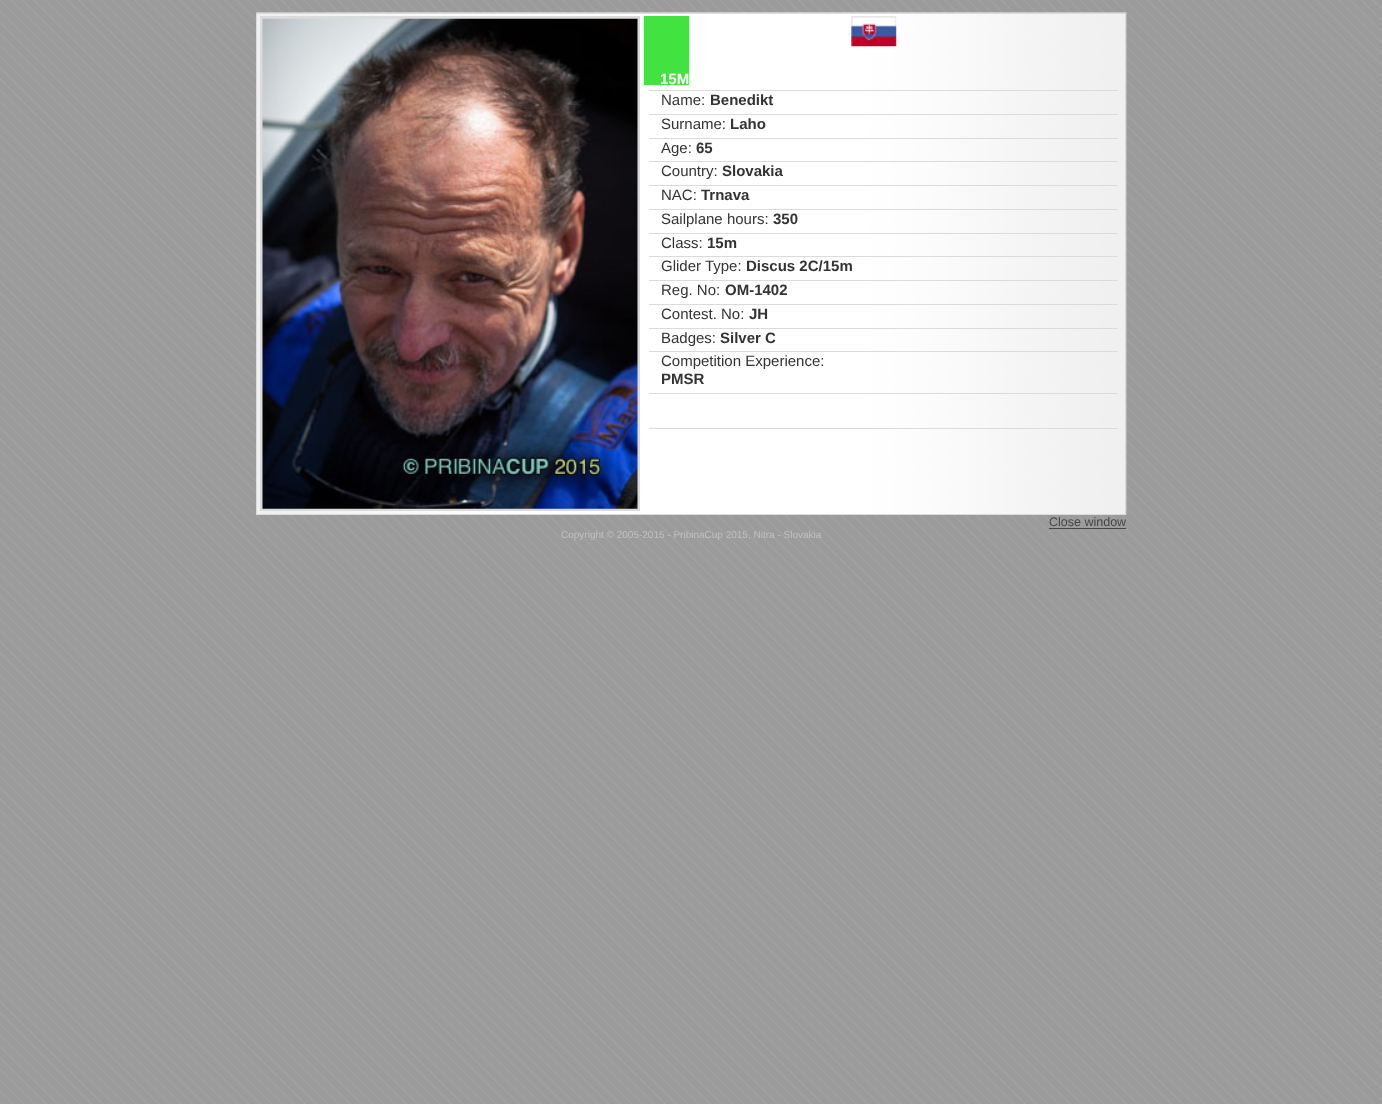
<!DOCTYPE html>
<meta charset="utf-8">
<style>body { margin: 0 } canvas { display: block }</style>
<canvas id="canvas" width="1382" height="1104"></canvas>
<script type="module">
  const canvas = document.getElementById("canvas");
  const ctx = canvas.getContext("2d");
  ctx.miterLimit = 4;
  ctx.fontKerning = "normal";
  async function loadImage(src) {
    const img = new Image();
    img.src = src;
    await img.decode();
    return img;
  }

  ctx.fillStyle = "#ffffff";
  ctx.fillRect(0, 0, 1382, 1104);
  ctx.drawImage(await loadImage("img1.png"), 0, 0, 1382, 1104);
  ctx.drawImage(await loadImage("img2.png"), 13, 13, 1357, 500);
  ctx.drawImage(await loadImage("img3.png"), 256, 12, 871, 503);
  ctx.strokeStyle = "#dbdbdb";
  ctx.strokeRect(256.5, 13.5, 869, 501);
  ctx.lineWidth = 3;
  ctx.strokeRect(261.5, 17.5, 377, 492);
  ctx.drawImage(await loadImage("img4.png"), 262, 18, 376, 491);
  ctx.drawImage(await loadImage("img5.png"), 851, 16, 46, 31);
  ctx.fillStyle = "#42e340";
  ctx.fillRect(644, 16, 45, 69);
  ctx.font = "bold 15px Liberation Sans";
  ctx.fillStyle = "#ffffff";
  ctx.fillText("15M", 660, 84);
  ctx.fillStyle = "#dbdbdb";
  ctx.fillRect(649, 90, 469, 1);
  ctx.font = "15px Liberation Sans";
  ctx.fillStyle = "#333333";
  ctx.fillText("Name:", 661, 105);
  ctx.font = "bold 15px Liberation Sans";
  ctx.fillText("Benedikt", 710, 105);
  ctx.fillStyle = "#dbdbdb";
  ctx.fillRect(649, 114, 469, 1);
  ctx.font = "15px Liberation Sans";
  ctx.fillStyle = "#333333";
  ctx.fillText("Surname:", 661, 129);
  ctx.font = "bold 15px Liberation Sans";
  ctx.fillText("Laho", 730, 129);
  ctx.fillStyle = "#dbdbdb";
  ctx.fillRect(649, 138, 469, 1);
  ctx.font = "15px Liberation Sans";
  ctx.fillStyle = "#333333";
  ctx.fillText("Age:", 661, 153);
  ctx.font = "bold 15px Liberation Sans";
  ctx.fillText("65", 696, 153);
  ctx.fillStyle = "#dbdbdb";
  ctx.fillRect(649, 161, 469, 1);
  ctx.font = "15px Liberation Sans";
  ctx.fillStyle = "#333333";
  ctx.fillText("Country:", 661, 176);
  ctx.font = "bold 15px Liberation Sans";
  ctx.fillText("Slovakia", 722, 176);
  ctx.fillStyle = "#dbdbdb";
  ctx.fillRect(649, 185, 469, 1);
  ctx.font = "15px Liberation Sans";
  ctx.fillStyle = "#333333";
  ctx.fillText("NAC:", 661, 200);
  ctx.font = "bold 15px Liberation Sans";
  ctx.fillText("Trnava", 701, 200);
  ctx.fillStyle = "#dbdbdb";
  ctx.fillRect(649, 209, 469, 1);
  ctx.font = "15px Liberation Sans";
  ctx.fillStyle = "#333333";
  ctx.fillText("Sailplane hours:", 661, 224);
  ctx.font = "bold 15px Liberation Sans";
  ctx.fillText("350", 773, 224);
  ctx.fillStyle = "#dbdbdb";
  ctx.fillRect(649, 233, 469, 1);
  ctx.font = "15px Liberation Sans";
  ctx.fillStyle = "#333333";
  ctx.fillText("Class:", 661, 248);
  ctx.font = "bold 15px Liberation Sans";
  ctx.fillText("15m", 707, 248);
  ctx.fillStyle = "#dbdbdb";
  ctx.fillRect(649, 256, 469, 1);
  ctx.font = "15px Liberation Sans";
  ctx.fillStyle = "#333333";
  ctx.fillText("Glider Type:", 661, 271);
  ctx.font = "bold 15px Liberation Sans";
  ctx.fillText("Discus 2C/15m", 746, 271);
  ctx.fillStyle = "#dbdbdb";
  ctx.fillRect(649, 280, 469, 1);
  ctx.font = "15px Liberation Sans";
  ctx.fillStyle = "#333333";
  ctx.fillText("Reg. No:", 661, 295);
  ctx.font = "bold 15px Liberation Sans";
  ctx.fillText("OM-1402", 725, 295);
  ctx.fillStyle = "#dbdbdb";
  ctx.fillRect(649, 304, 469, 1);
  ctx.font = "15px Liberation Sans";
  ctx.fillStyle = "#333333";
  ctx.fillText("Contest. No:", 661, 319);
  ctx.font = "bold 15px Liberation Sans";
  ctx.fillText("JH", 749, 319);
  ctx.fillStyle = "#dbdbdb";
  ctx.fillRect(649, 328, 469, 1);
  ctx.font = "15px Liberation Sans";
  ctx.fillStyle = "#333333";
  ctx.fillText("Badges:", 661, 343);
  ctx.font = "bold 15px Liberation Sans";
  ctx.fillText("Silver C", 720, 343);
  ctx.fillStyle = "#dbdbdb";
  ctx.fillRect(649, 351, 469, 1);
  ctx.font = "15px Liberation Sans";
  ctx.fillStyle = "#333333";
  ctx.fillText("Competition Experience:", 661, 366);
  ctx.font = "bold 15px Liberation Sans";
  ctx.fillText("PMSR", 661, 384);
  ctx.fillStyle = "#dbdbdb";
  ctx.fillRect(649, 393, 469, 1);
  ctx.fillRect(649, 428, 469, 1);
  ctx.font = "12.5px Liberation Sans";
  ctx.fillStyle = "#464646";
  ctx.fillText("Close window", 1049, 526);
  ctx.fillRect(1049, 528, 77, 1);
  ctx.font = "10px Liberation Sans";
  ctx.fillStyle = "#c1c1c1";
  ctx.fillText("Copyright © 2005-2015 - PribinaCup 2015, Nitra - Slovakia", 561, 538);
</script>
